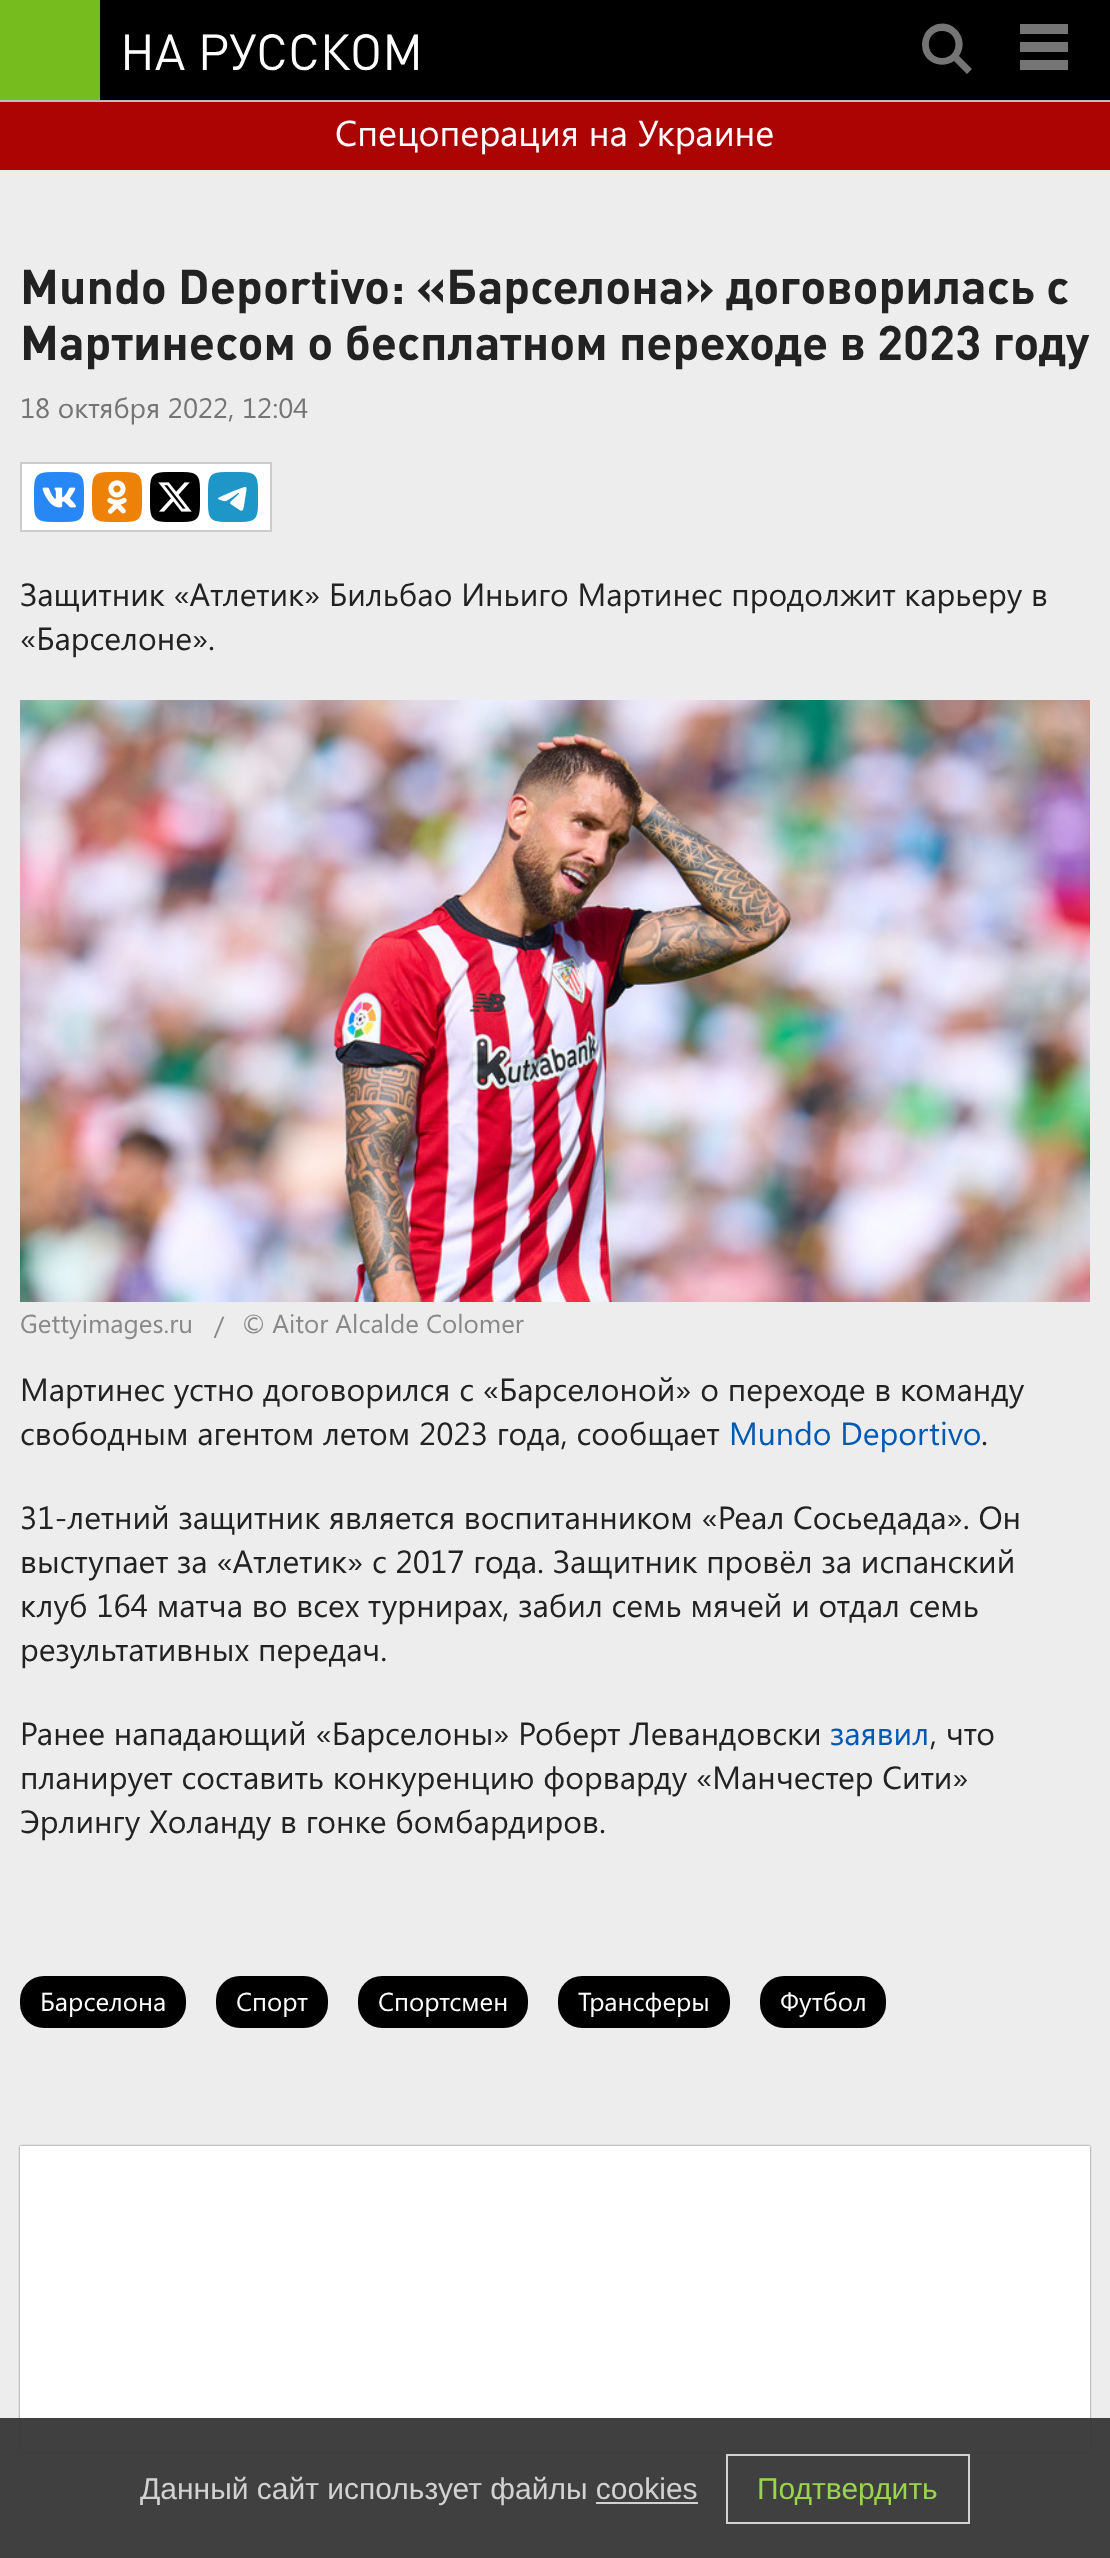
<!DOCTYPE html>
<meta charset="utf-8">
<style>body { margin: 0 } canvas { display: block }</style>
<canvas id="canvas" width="1110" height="2558"></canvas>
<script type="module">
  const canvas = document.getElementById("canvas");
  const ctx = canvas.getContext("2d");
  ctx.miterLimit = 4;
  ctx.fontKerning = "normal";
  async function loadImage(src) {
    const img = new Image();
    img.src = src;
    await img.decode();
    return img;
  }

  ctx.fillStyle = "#000000";
  ctx.fillRect(0, 0, 1110, 2558);
  ctx.fillStyle = "#bebebe";
  ctx.fillRect(0, 100, 1110, 2);
  ctx.fillStyle = "#77bc1f";
  ctx.fillRect(0, 0, 100, 100);
  ctx.font = "50px DIN";
  ctx.fillStyle = "#ffffff";
  ctx.fillText("НА РУССКОМ", 120, 70);
  ctx.fillStyle = "#757575";
  ctx.beginPath();
  ctx.moveTo(972, 69);
  ctx.lineTo(967, 74);
  ctx.lineTo(954, 61);
  ctx.bezierCurveTo(944, 68, 930, 65, 924, 54);
  ctx.bezierCurveTo(922, 49, 921, 42, 924, 36);
  ctx.bezierCurveTo(925, 32, 929, 28, 933, 26);
  ctx.bezierCurveTo(952, 16, 971, 39, 959, 56);
  ctx.closePath();
  ctx.moveTo(942, 31);
  ctx.bezierCurveTo(924, 31, 925, 58, 942, 58);
  ctx.bezierCurveTo(960, 58, 960, 31, 942, 31);
  ctx.closePath();
  ctx.fill();
  ctx.fillRect(1020, 60, 48, 10);
  ctx.fillRect(1020, 24, 48, 10);
  ctx.fillRect(1020, 42, 48, 10);
  ctx.fillStyle = "#ac0303";
  ctx.fillRect(0, 102, 1110, 68);
  ctx.font = "36px Segoe UI";
  ctx.fillStyle = "#ffffff";
  ctx.fillText("Спецоперация на Украине", 335, 146);
  ctx.fillStyle = "#ededed";
  ctx.fillRect(0, 170, 1110, 2388);
  ctx.font = "bold 48px DIN";
  ctx.fillStyle = "#222222";
  ctx.fillText("Mundo Deportivo: «Барселона» договорилась с", 20, 304);
  ctx.fillText("Мартинесом о бесплатном переходе в 2023 году", 20, 360);
  ctx.font = "28px Segoe UI";
  ctx.fillStyle = "#757575";
  ctx.fillText("18 октября 2022, 12:04", 20, 418);
  ctx.fillStyle = "#ffffff";
  ctx.beginPath();
  ctx.rect(21, 463, 250, 68);
  ctx.fill();
  ctx.strokeStyle = "#cccccc";
  ctx.lineWidth = 2;
  ctx.stroke();
  ctx.drawImage(await loadImage("img1.png"), 34, 472, 50, 50);
  ctx.drawImage(await loadImage("img2.png"), 92, 472, 50, 50);
  ctx.drawImage(await loadImage("img3.png"), 150, 472, 50, 50);
  ctx.drawImage(await loadImage("img4.png"), 208, 472, 50, 50);
  ctx.font = "32px Segoe UI";
  ctx.fillStyle = "#222222";
  ctx.fillText("Защитник «Атлетик» Бильбао Иньиго Мартинес продолжит карьеру в", 20, 606);
  ctx.fillText("«Барселоне».", 20, 650);
  ctx.drawImage(await loadImage("img5.png"), 20, 700, 1070, 602);
  ctx.font = "26px Segoe UI";
  ctx.fillStyle = "#888888";
  ctx.fillText("Gettyimages.ru", 20, 1333);
  ctx.fillText("/", 214, 1335);
  ctx.fillText("© Aitor Alcalde Colomer", 242, 1333);
  ctx.font = "32px Segoe UI";
  ctx.fillStyle = "#222222";
  ctx.fillText("Мартинес устно договорился с «Барселоной» о переходе в команду", 20, 1401);
  ctx.fillText("свободным агентом летом 2023 года, сообщает", 20, 1445);
  ctx.fillStyle = "#0059b2";
  ctx.fillText("Mundo Deportivo", 729, 1445);
  ctx.fillStyle = "#222222";
  ctx.fillText(".", 981, 1445);
  ctx.fillText("31-летний защитник является воспитанником «Реал Сосьедада». Он", 20, 1529);
  ctx.fillText("выступает за «Атлетик» с 2017 года. Защитник провёл за испанский", 20, 1573);
  ctx.fillText("клуб 164 матча во всех турнирах, забил семь мячей и отдал семь", 20, 1617);
  ctx.fillText("результативных передач.", 20, 1661);
  ctx.fillText("Ранее нападающий «Барселоны» Роберт Левандовски", 20, 1745);
  ctx.fillStyle = "#0059b2";
  ctx.fillText("заявил", 830, 1745);
  ctx.fillStyle = "#222222";
  ctx.fillText(", что", 930, 1745);
  ctx.fillText("планирует составить конкуренцию форварду «Манчестер Сити»", 20, 1789);
  ctx.fillText("Эрлингу Холанду в гонке бомбардиров.", 20, 1833);
  ctx.fillStyle = "#000000";
  ctx.beginPath();
  ctx.roundRect(20, 1976, 166, 52, 24);
  ctx.fill();
  ctx.font = "26px Segoe UI";
  ctx.fillStyle = "#ffffff";
  ctx.fillText("Барселона", 40, 2011);
  ctx.fillStyle = "#000000";
  ctx.beginPath();
  ctx.roundRect(216, 1976, 112, 52, 24);
  ctx.fill();
  ctx.fillStyle = "#ffffff";
  ctx.fillText("Спорт", 236, 2011);
  ctx.fillStyle = "#000000";
  ctx.beginPath();
  ctx.roundRect(358, 1976, 170, 52, 24);
  ctx.fill();
  ctx.fillStyle = "#ffffff";
  ctx.fillText("Спортсмен", 378, 2011);
  ctx.fillStyle = "#000000";
  ctx.beginPath();
  ctx.roundRect(558, 1976, 172, 52, 24);
  ctx.fill();
  ctx.fillStyle = "#ffffff";
  ctx.fillText("Трансферы", 578, 2011);
  ctx.fillStyle = "#000000";
  ctx.beginPath();
  ctx.roundRect(760, 1976, 126, 52, 24);
  ctx.fill();
  ctx.fillStyle = "#ffffff";
  ctx.fillText("Футбол", 780, 2011);
  ctx.fillStyle = "#666666";
  ctx.filter = "blur(1px)";
  ctx.beginPath();
  ctx.rect(20, 2146, 1070, 306);
  ctx.fill();
  ctx.filter = "none";
  ctx.fillStyle = "#ffffff";
  ctx.fillRect(20, 2146, 1070, 306);
  ctx.fillRect(20, 2542, 1070, 16);
  ctx.fillStyle = "rgba(58, 58, 58, 0.97)";
  ctx.fillRect(0, 2418, 1110, 140);
  ctx.font = "30px Liberation Sans";
  ctx.fillStyle = "#d2d2d2";
  ctx.fillText("Данный сайт использует файлы cookies", 140, 2499);
  ctx.fillRect(596, 2502, 102, 2);
  ctx.strokeStyle = "#d2d2d2";
  ctx.strokeRect(727, 2455, 242, 68);
  ctx.fillStyle = "#99d54c";
  ctx.fillText("Подтвердить", 757, 2499);
</script>
